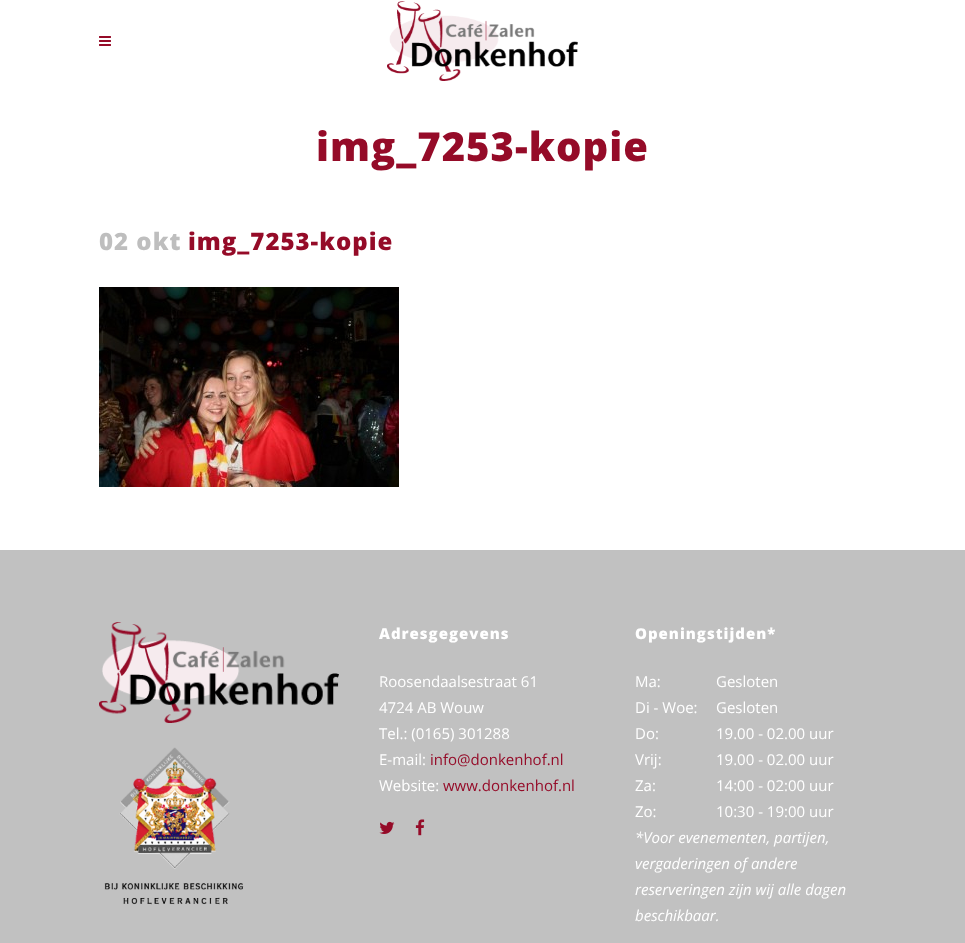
<!DOCTYPE html>
<meta charset="utf-8">
<style>body { margin: 0 } canvas { display: block }</style>
<canvas id="canvas" width="965" height="943"></canvas>
<script type="module">
  const canvas = document.getElementById("canvas");
  const ctx = canvas.getContext("2d");
  ctx.miterLimit = 4;
  ctx.fontKerning = "normal";
  async function loadImage(src) {
    const img = new Image();
    img.src = src;
    await img.decode();
    return img;
  }

  ctx.fillStyle = "#ffffff";
  ctx.fillRect(0, 0, 965, 943);
  ctx.drawImage(await loadImage("img1.png"), 99, 36, 12, 10);
  ctx.drawImage(await loadImage("img2.png"), 387, 1, 191, 80);
  ctx.letterSpacing = "1px";
  ctx.font = "800 40px Open Sans";
  ctx.fillStyle = "#950b28";
  ctx.fillText("img_7253-kopie", 316, 161);
  ctx.font = "800 24px Open Sans";
  ctx.fillStyle = "#bebebe";
  ctx.fillText("02 okt", 99, 250);
  ctx.fillStyle = "#950b28";
  ctx.fillText("img_7253-kopie", 188, 250);
  ctx.drawImage(await loadImage("img3.png"), 99, 287, 300, 200);
  ctx.fillStyle = "#c1c1c1";
  ctx.fillRect(0, 550, 965, 393);
  ctx.drawImage(await loadImage("img4.png"), 99, 622, 240, 101);
  ctx.drawImage(await loadImage("img5.png"), 104, 747, 140, 158);
  ctx.font = "800 15px Open Sans";
  ctx.fillStyle = "#ffffff";
  ctx.fillText("Adresgegevens", 379, 639);
  ctx.letterSpacing = "0px";
  ctx.font = "15px Open Sans";
  ctx.fillText("Roosendaalsestraat 61", 379, 687);
  ctx.fillText("4724 AB Wouw", 379, 713);
  ctx.fillText("Tel.: (0165) 301288", 379, 739);
  ctx.fillText("E-mail:", 379, 765);
  ctx.fillStyle = "#950b28";
  ctx.fillText("info@donkenhof.nl", 430, 765);
  ctx.fillStyle = "#ffffff";
  ctx.fillText("Website:", 379, 791);
  ctx.fillStyle = "#950b28";
  ctx.fillText("www.donkenhof.nl", 443, 791);
  ctx.drawImage(await loadImage("img6.png"), 379, 821, 16, 13);
  ctx.drawImage(await loadImage("img7.png"), 415, 819, 10, 17);
  ctx.letterSpacing = "1px";
  ctx.font = "800 15px Open Sans";
  ctx.fillStyle = "#ffffff";
  ctx.fillText("Openingstijden*", 635, 639);
  ctx.letterSpacing = "0px";
  ctx.font = "15px Open Sans";
  ctx.fillText("Ma:", 635, 687);
  ctx.fillText("Gesloten", 716, 687);
  ctx.fillText("Di - Woe:", 635, 713);
  ctx.fillText("Gesloten", 716, 713);
  ctx.fillText("Do:", 635, 739);
  ctx.fillText("19.00 - 02.00 uur", 716, 739);
  ctx.fillText("Vrij:", 635, 765);
  ctx.fillText("19.00 - 02.00 uur", 716, 765);
  ctx.fillText("Za:", 635, 791);
  ctx.fillText("14:00 - 02:00 uur", 716, 791);
  ctx.fillText("Zo:", 635, 817);
  ctx.fillText("10:30 - 19:00 uur", 716, 817);
  ctx.font = "italic 15px Open Sans";
  ctx.fillText("*Voor evenementen, partijen,", 635, 843);
  ctx.fillText("vergaderingen of andere", 635, 869);
  ctx.fillText("reserveringen zijn wij alle dagen", 635, 895);
  ctx.fillText("beschikbaar.", 635, 921);
</script>
